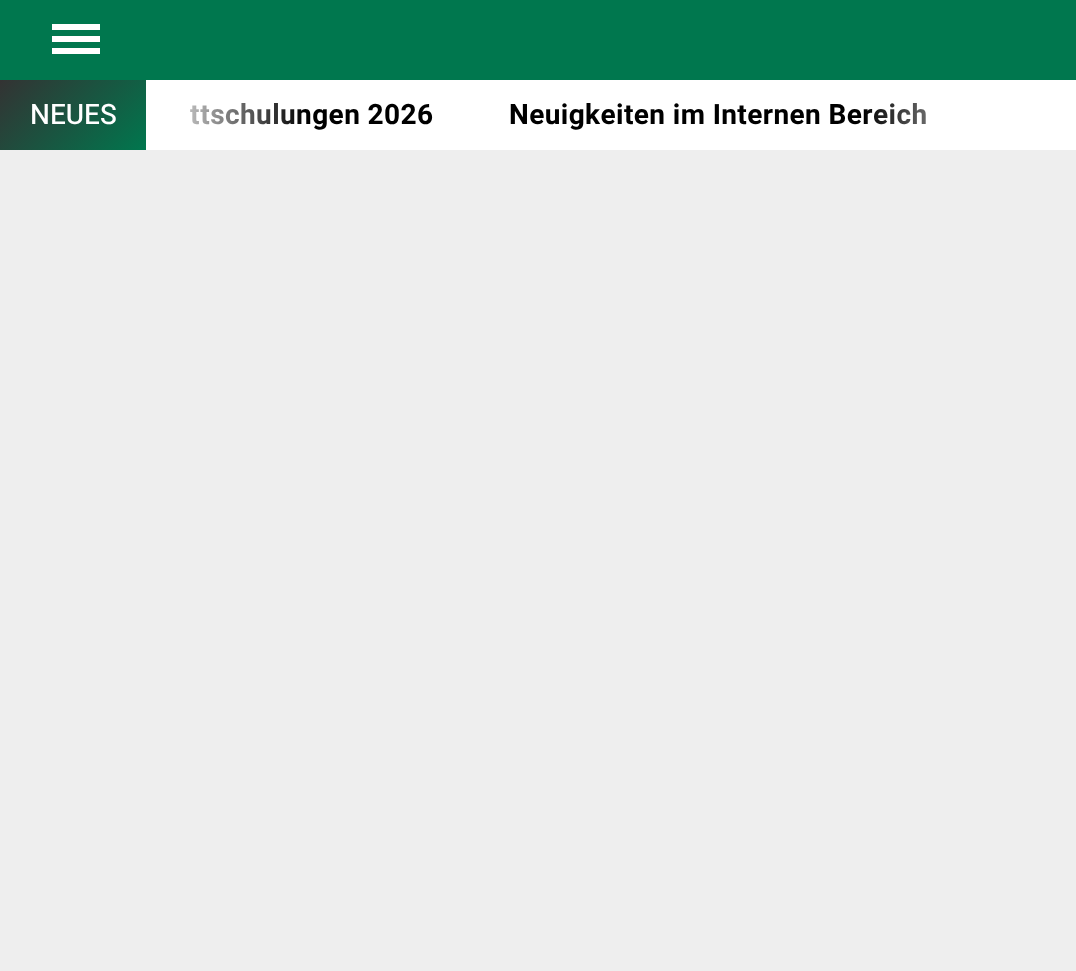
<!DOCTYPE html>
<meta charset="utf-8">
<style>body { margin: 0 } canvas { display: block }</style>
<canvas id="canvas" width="1076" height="971"></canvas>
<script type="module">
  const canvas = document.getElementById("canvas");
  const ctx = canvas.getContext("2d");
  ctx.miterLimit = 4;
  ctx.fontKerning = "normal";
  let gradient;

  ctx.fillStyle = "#00774e";
  ctx.fillRect(0, 0, 1076, 971);
  ctx.fillStyle = "#ffffff";
  ctx.fillRect(52, 36, 48, 6);
  ctx.fillRect(52, 24, 48, 6);
  ctx.fillRect(52, 48, 48, 6);
  ctx.fillRect(147, 80, 929, 70);
  gradient = ctx.createLinearGradient(456, 279, 129, -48);
  gradient.addColorStop(0, "#00774e");
  gradient.addColorStop(0.33, "#eeeeee");
  gradient.addColorStop(0.67, "#00774e");
  gradient.addColorStop(1, "#333333");
  ctx.fillStyle = gradient;
  ctx.fillRect(0, 80, 146, 70);
  ctx.font = "500 28px Heebo";
  ctx.fillStyle = "#ffffff";
  ctx.fillText("NEUES", 30, 124);
  ctx.letterSpacing = "0.4px";
  ctx.font = "bold 28px Heebo";
  ctx.fillStyle = "#000000";
  ctx.fillText("ttschulungen 2026", 190, 124);
  gradient = ctx.createLinearGradient(146, 115, 306, 115);
  gradient.addColorStop(0, "#ffffff");
  gradient.addColorStop(1, "rgba(255, 255, 255, 0)");
  ctx.fillStyle = gradient;
  ctx.fillRect(146, 80, 157, 70);
  ctx.fillStyle = "#000000";
  ctx.fillText("Neuigkeiten im Internen Bereich", 509, 124);
  gradient = ctx.createLinearGradient(862, 115, 1022, 115);
  gradient.addColorStop(0, "rgba(255, 255, 255, 0)");
  gradient.addColorStop(1, "#ffffff");
  ctx.fillStyle = gradient;
  ctx.fillRect(865, 103, 61, 22);
  ctx.fillStyle = "#eeeeee";
  ctx.fillRect(0, 150, 1076, 821);
</script>
